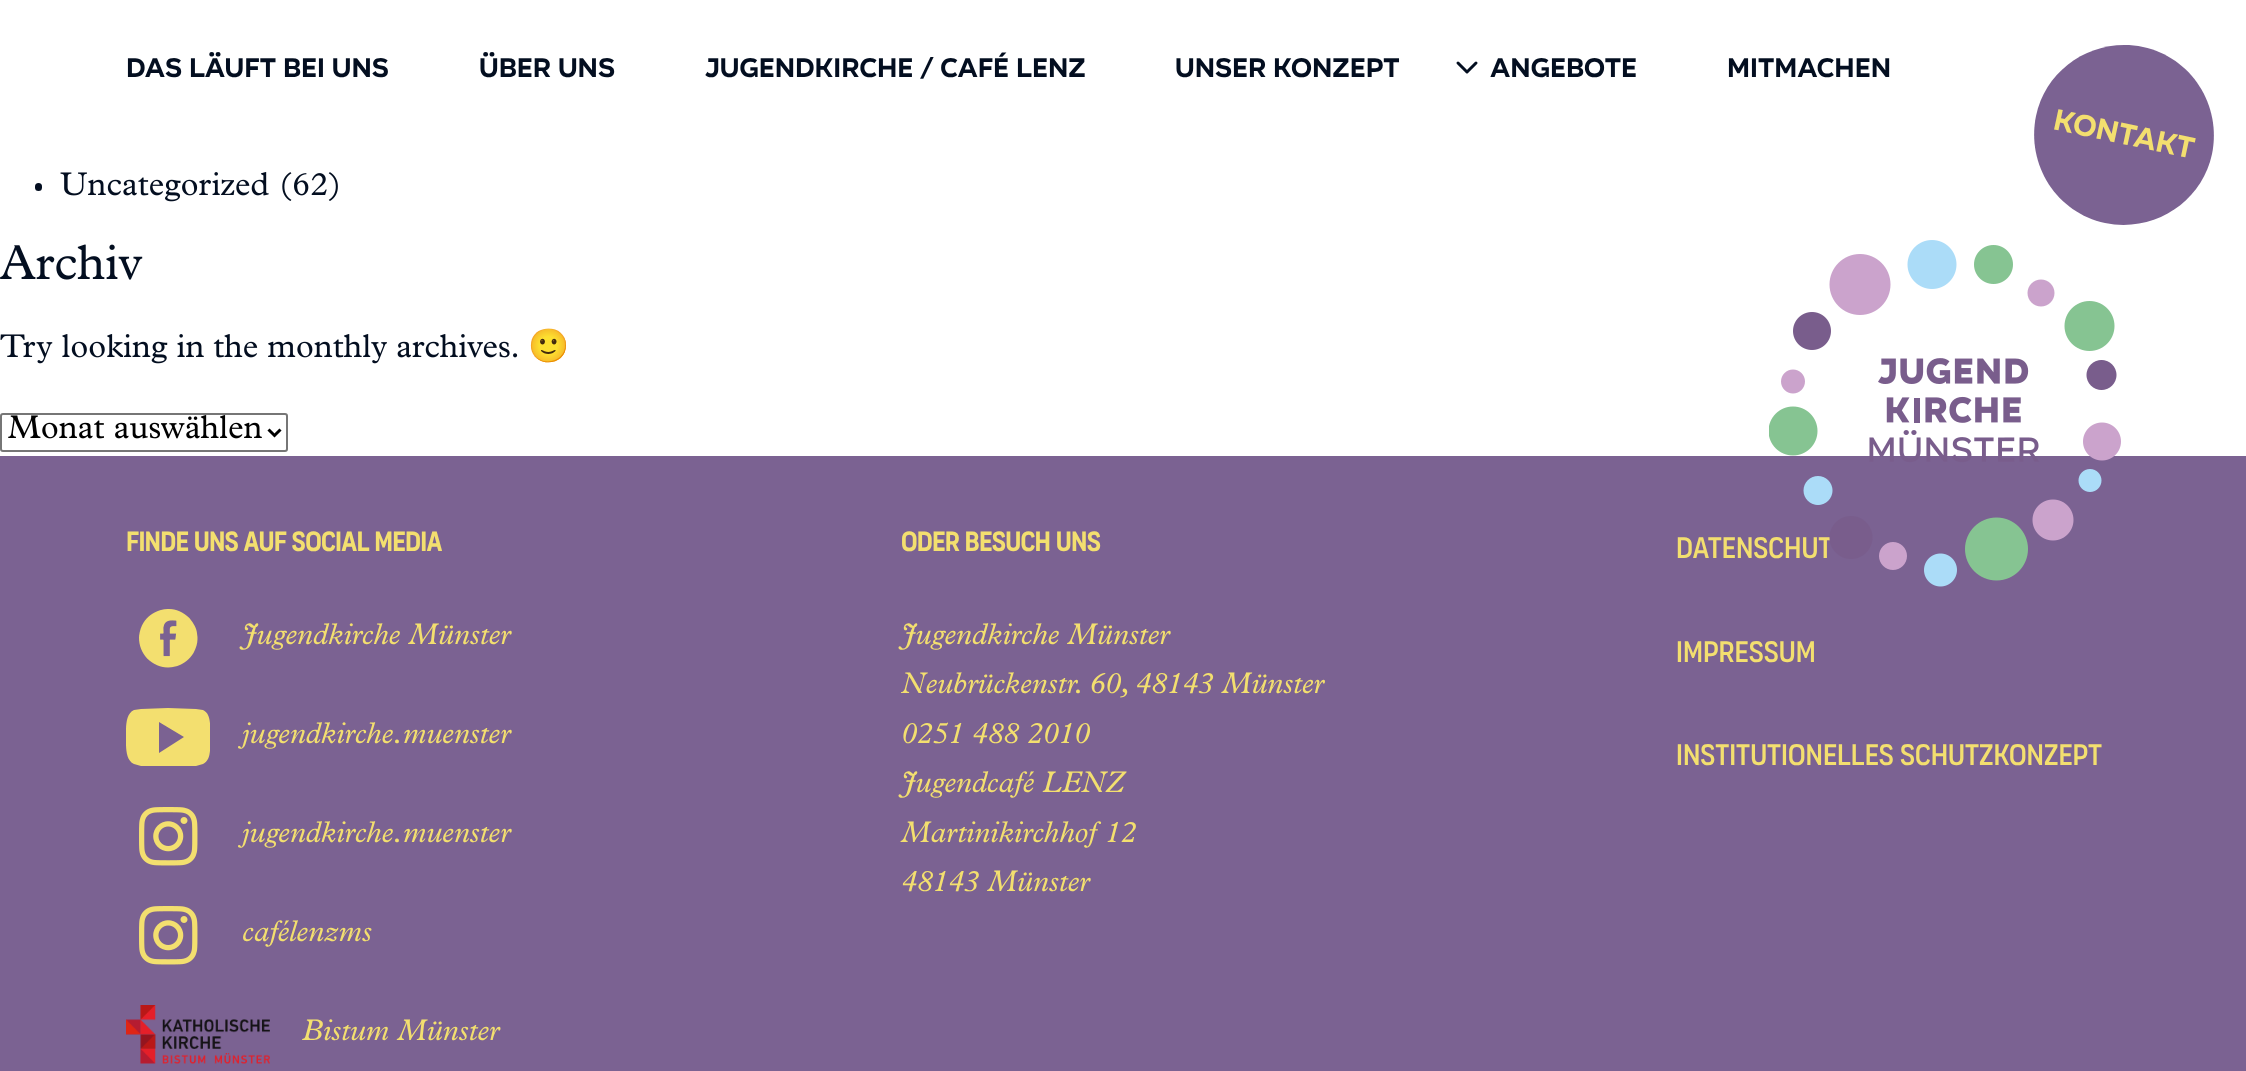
<!DOCTYPE html>
<meta charset="utf-8">
<style>body { margin: 0 } canvas { display: block }</style>
<canvas id="canvas" width="2246" height="1071"></canvas>
<script type="module">
  const canvas = document.getElementById("canvas");
  const ctx = canvas.getContext("2d");
  ctx.miterLimit = 4;
  ctx.fontKerning = "normal";
  async function loadImage(src) {
    const img = new Image();
    img.src = src;
    await img.decode();
    return img;
  }

  ctx.fillStyle = "#ffffff";
  ctx.fillRect(0, 0, 2246, 1071);
  ctx.font = "bold 27px 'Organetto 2'";
  ctx.fillStyle = "#030e20";
  ctx.fillText("DAS LÄUFT BEI UNS", 126, 77);
  ctx.fillText("ÜBER UNS", 479, 77);
  ctx.fillText("JUGENDKIRCHE / CAFÉ LENZ", 705, 77);
  ctx.fillText("UNSER KONZEPT", 1175, 77);
  ctx.beginPath();
  ctx.moveTo(1458, 63);
  ctx.lineTo(1467, 72);
  ctx.lineTo(1476, 63);
  ctx.strokeStyle = "#030e20";
  ctx.lineWidth = 3;
  ctx.lineCap = "round";
  ctx.lineJoin = "round";
  ctx.stroke();
  ctx.fillText("ANGEBOTE", 1490, 77);
  ctx.fillText("MITMACHEN", 1727, 77);
  ctx.fillStyle = "#7b6292";
  ctx.beginPath();
  ctx.moveTo(2143, 47);
  ctx.bezierCurveTo(2191, 57, 2222, 105, 2212, 154);
  ctx.bezierCurveTo(2202, 202, 2154, 233, 2105, 223);
  ctx.bezierCurveTo(2057, 213, 2026, 165, 2036, 116);
  ctx.bezierCurveTo(2046, 68, 2094, 37, 2143, 47);
  ctx.closePath();
  ctx.fill();
  ctx.font = "bold 30px 'Organetto 2'";
  ctx.fillStyle = "#f3df6f";
  ctx.save();
  ctx.translate(2052, 129);
  ctx.rotate(12 * Math.PI / 180);
  ctx.fillText("KONTAKT", 0, 0);
  ctx.restore();
  ctx.fillStyle = "#7b6292";
  ctx.fillRect(0, 456, 2246, 615);
  ctx.font = "30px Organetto";
  ctx.fillStyle = "#f3df6f";
  ctx.fillText("DATENSCHUT", 1676, 558);
  ctx.drawImage(await loadImage("img1.png"), 1769, 240, 352, 347);
  ctx.fillStyle = "#030e20";
  ctx.beginPath();
  ctx.roundRect(35, 183, 7, 8, 3.5);
  ctx.fill();
  ctx.drawImage(await loadImage("img2.png"), 60, 172, 209, 30);
  ctx.drawImage(await loadImage("img3.png"), 282, 172, 56, 29);
  ctx.drawImage(await loadImage("img4.png"), 0, 244, 143, 36);
  ctx.drawImage(await loadImage("img5.png"), 0, 334, 518, 30);
  ctx.font = "33px Noto Color Emoji";
  ctx.fillText("🙂", 528, 357);
  ctx.beginPath();
  ctx.roundRect(1, 414, 286, 37, 2);
  ctx.strokeStyle = "#767676";
  ctx.lineWidth = 2;
  ctx.lineJoin = "miter";
  ctx.stroke();
  ctx.beginPath();
  ctx.moveTo(268.5, 429.5);
  ctx.lineTo(274.5, 435.5);
  ctx.lineTo(280.5, 429.5);
  ctx.strokeStyle = "#000000";
  ctx.lineWidth = 3;
  ctx.lineCap = "butt";
  ctx.stroke();
  ctx.drawImage(await loadImage("img6.png"), 8, 415, 254, 24);
  ctx.font = "bold 27px Organetto";
  ctx.fillStyle = "#f3df6f";
  ctx.fillText("FINDE UNS AUF SOCIAL MEDIA", 126, 551);
  ctx.drawImage(await loadImage("img7.png"), 139, 609, 59, 59);
  ctx.font = "italic 30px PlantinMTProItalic";
  ctx.fillText("Jugendkirche Münster", 242, 644);
  ctx.save();
  ctx.beginPath();
  ctx.rect(126, 708, 84, 59);
  ctx.clip();
  ctx.beginPath();
  ctx.moveTo(210, 737);
  ctx.bezierCurveTo(210, 745, 212, 760, 203, 764);
  ctx.lineTo(196, 766);
  ctx.lineTo(168, 766);
  ctx.lineTo(141, 766);
  ctx.lineTo(134, 764);
  ctx.bezierCurveTo(125, 760, 126, 745, 126, 737);
  ctx.bezierCurveTo(126, 729, 125, 714, 134, 710);
  ctx.lineTo(141, 709);
  ctx.lineTo(168, 708);
  ctx.lineTo(196, 709);
  ctx.lineTo(203, 710);
  ctx.bezierCurveTo(212, 714, 210, 729, 210, 737);
  ctx.closePath();
  ctx.moveTo(159, 722);
  ctx.lineTo(159, 753);
  ctx.lineTo(184, 737);
  ctx.closePath();
  ctx.fill();
  ctx.restore();
  ctx.fillText("jugendkirche.muenster", 242, 743);
  ctx.drawImage(await loadImage("img8.png"), 139, 807, 59, 59);
  ctx.fillText("jugendkirche.muenster", 242, 842);
  ctx.drawImage(await loadImage("img8.png"), 139, 906, 59, 59);
  ctx.fillText("cafélenzms", 242, 941);
  ctx.drawImage(await loadImage("img9.png"), 126, 1005, 144, 59);
  ctx.fillText("Bistum Münster", 302, 1040);
  ctx.font = "bold 27px Organetto";
  ctx.fillText("ODER BESUCH UNS", 901, 551);
  ctx.font = "italic 30px PlantinMTProItalic";
  ctx.fillText("Jugendkirche Münster", 901, 644);
  ctx.fillText("Neubrückenstr. 60, 48143 Münster", 901, 693);
  ctx.fillText("0251 488 2010", 901, 743);
  ctx.fillText("Jugendcafé LENZ", 901, 792);
  ctx.fillText("Martinikirchhof 12", 901, 842);
  ctx.fillText("48143 Münster", 901, 891);
  ctx.font = "30px Organetto";
  ctx.fillText("IMPRESSUM", 1676, 662);
  ctx.fillText("INSTITUTIONELLES SCHUTZKONZEPT", 1676, 765);
</script>
